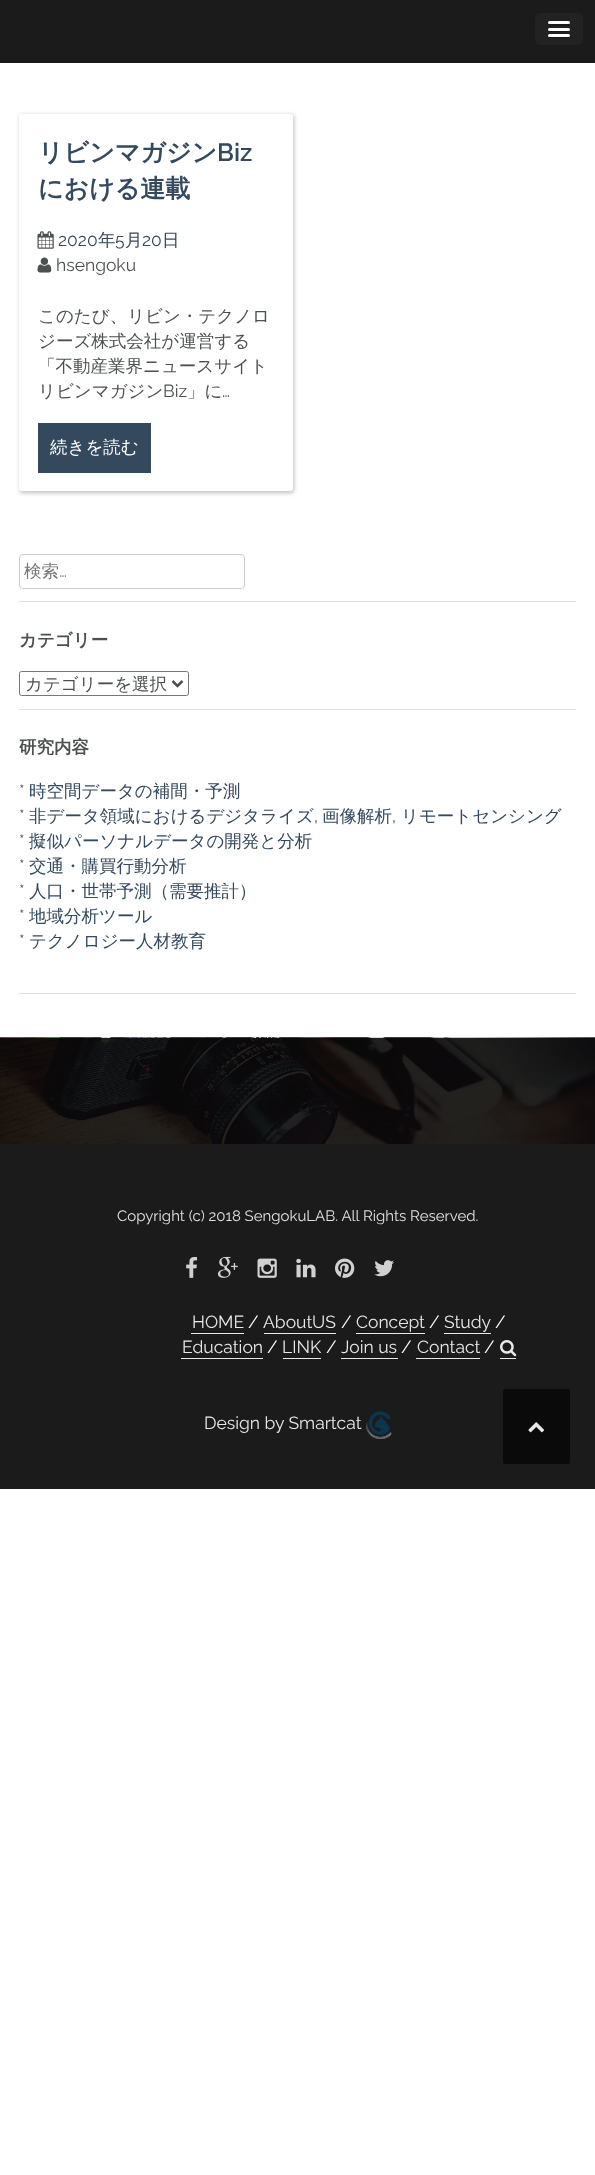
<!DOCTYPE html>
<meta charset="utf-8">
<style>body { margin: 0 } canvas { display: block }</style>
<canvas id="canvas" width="595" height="2175"></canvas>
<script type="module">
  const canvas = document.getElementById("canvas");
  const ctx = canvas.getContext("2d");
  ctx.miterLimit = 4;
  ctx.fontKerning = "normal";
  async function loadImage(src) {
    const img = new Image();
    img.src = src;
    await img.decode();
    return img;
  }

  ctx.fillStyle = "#ffffff";
  ctx.fillRect(0, 0, 595, 2175);
  ctx.fillStyle = "#1b1b1b";
  ctx.fillRect(0, 0, 595, 63);
  ctx.fillStyle = "#222222";
  ctx.beginPath();
  ctx.roundRect(535, 13, 48, 32, 5);
  ctx.fill();
  ctx.fillStyle = "#1a1a1a";
  ctx.beginPath();
  ctx.moveTo(548.5, 23.5);
  ctx.bezierCurveTo(546.5, 26.5, 552, 26, 552.5, 26);
  ctx.lineTo(559, 26);
  ctx.bezierCurveTo(561, 26, 569, 26.5, 569.5, 25.5);
  ctx.bezierCurveTo(570, 24.5, 570, 24, 569.5, 23.5);
  ctx.bezierCurveTo(569, 24, 549.5, 24, 548.5, 23.5);
  ctx.closePath();
  ctx.fill();
  ctx.fillStyle = "#ffffff";
  ctx.beginPath();
  ctx.roundRect(548, 21, 22, 3, 1.5);
  ctx.fill();
  ctx.fillStyle = "#1a1a1a";
  ctx.beginPath();
  ctx.moveTo(548, 30);
  ctx.bezierCurveTo(547, 32.5, 552, 32, 552.5, 32);
  ctx.lineTo(565.5, 32);
  ctx.bezierCurveTo(565.5, 32, 572, 32.5, 569.5, 29.5);
  ctx.lineTo(569, 30);
  ctx.closePath();
  ctx.fill();
  ctx.fillStyle = "#ffffff";
  ctx.beginPath();
  ctx.roundRect(548, 28, 22, 3, 1.5);
  ctx.fill();
  ctx.fillStyle = "#1a1a1a";
  ctx.beginPath();
  ctx.moveTo(548, 36);
  ctx.bezierCurveTo(547.5, 38.5, 552, 38, 552.5, 38);
  ctx.lineTo(565.5, 38);
  ctx.bezierCurveTo(566, 38, 571.5, 38.5, 570, 35.5);
  ctx.lineTo(569, 36);
  ctx.closePath();
  ctx.fill();
  ctx.fillStyle = "#ffffff";
  ctx.beginPath();
  ctx.roundRect(548, 34, 22, 3, 1.5);
  ctx.fill();
  ctx.save();
  ctx.beginPath();
  ctx.moveTo(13, 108);
  ctx.lineTo(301, 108);
  ctx.lineTo(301, 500);
  ctx.lineTo(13, 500);
  ctx.closePath();
  ctx.moveTo(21.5, 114);
  ctx.lineTo(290.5, 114);
  ctx.bezierCurveTo(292, 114, 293, 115, 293, 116.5);
  ctx.lineTo(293, 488.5);
  ctx.bezierCurveTo(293, 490, 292, 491, 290.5, 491);
  ctx.lineTo(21.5, 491);
  ctx.bezierCurveTo(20, 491, 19, 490, 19, 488.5);
  ctx.lineTo(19, 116.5);
  ctx.bezierCurveTo(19, 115, 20, 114, 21.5, 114);
  ctx.closePath();
  ctx.clip("evenodd");
  ctx.fillStyle = "#bfbfbf";
  ctx.filter = "blur(2px)";
  ctx.beginPath();
  ctx.roundRect(20, 115, 274, 378, 2.5);
  ctx.fill();
  ctx.filter = "none";
  ctx.restore();
  ctx.font = "bold 25px WenQuanYi Zen Hei";
  ctx.fillStyle = "#34495e";
  ctx.fillText("リビンマガジン", 38, 161);
  ctx.font = "600 25px Raleway";
  ctx.fillText("Biz", 217, 161);
  ctx.font = "bold 25px WenQuanYi Zen Hei";
  ctx.fillText("における連載", 38, 197);
  ctx.drawImage(await loadImage("img1.png"), 37, 231, 17, 18);
  ctx.font = "17.5px Raleway";
  ctx.fillText("2020", 58, 246);
  ctx.font = "500 17.5px WenQuanYi Zen Hei";
  ctx.fillText("年", 98, 246);
  ctx.font = "17.5px Raleway";
  ctx.fillText("5", 115, 246);
  ctx.font = "500 17.5px WenQuanYi Zen Hei";
  ctx.fillText("月", 125, 246);
  ctx.font = "17.5px Raleway";
  ctx.fillText("20", 142, 246);
  ctx.font = "500 17.5px WenQuanYi Zen Hei";
  ctx.fillText("日", 162, 246);
  ctx.drawImage(await loadImage("img2.png"), 37, 257, 15, 16);
  ctx.font = "17.5px Raleway";
  ctx.fillStyle = "#4d5051";
  ctx.fillText("hsengoku", 56, 271);
  ctx.font = "500 17.5px WenQuanYi Zen Hei";
  ctx.fillText("このたび、リビン・テクノロ", 38, 322);
  ctx.fillText("ジーズ株式会社が運営する", 38, 347);
  ctx.fillText("「不動産業界ニュースサイト", 38, 372);
  ctx.fillText("リビンマガジン", 38, 397);
  ctx.font = "17.5px Raleway";
  ctx.fillText("Biz", 163, 397);
  ctx.font = "500 17.5px WenQuanYi Zen Hei";
  ctx.fillText("」に", 187, 397);
  ctx.font = "17.5px Raleway";
  ctx.fillText("…", 222, 397);
  ctx.fillStyle = "#34495e";
  ctx.fillRect(38, 423, 113, 50);
  ctx.font = "500 17.5px WenQuanYi Zen Hei";
  ctx.fillStyle = "#ffffff";
  ctx.fillText("続きを読む", 50, 453);
  ctx.fillStyle = "#e1e1e1";
  ctx.fillRect(19, 601, 557, 1);
  ctx.beginPath();
  ctx.roundRect(19.5, 554.5, 225, 34, 3.5);
  ctx.strokeStyle = "#cccccc";
  ctx.stroke();
  ctx.fillStyle = "#757575";
  ctx.fillText("検索", 24, 577);
  ctx.font = "17.5px Raleway";
  ctx.fillText("…", 59, 577);
  ctx.fillStyle = "#e1e1e1";
  ctx.fillRect(19, 709, 557, 1);
  ctx.font = "bold 17.5px WenQuanYi Zen Hei";
  ctx.fillStyle = "#4d5051";
  ctx.fillText("カテゴリー", 19, 646);
  ctx.beginPath();
  ctx.roundRect(19.5, 671.5, 169, 24, 2);
  ctx.strokeStyle = "#767676";
  ctx.stroke();
  ctx.beginPath();
  ctx.moveTo(172.5, 681);
  ctx.lineTo(177.5, 686);
  ctx.lineTo(182.5, 681);
  ctx.strokeStyle = "#4d5051";
  ctx.lineWidth = 2.5;
  ctx.stroke();
  ctx.font = "500 17.5px WenQuanYi Zen Hei";
  ctx.fillText("カテゴリーを選択", 25, 690);
  ctx.fillStyle = "#e1e1e1";
  ctx.fillRect(19, 993, 557, 1);
  ctx.font = "bold 17.5px WenQuanYi Zen Hei";
  ctx.fillStyle = "#4d5051";
  ctx.fillText("研究内容", 19, 753);
  ctx.font = "17.5px Raleway";
  ctx.fillText("*", 19, 797);
  ctx.font = "500 17.5px WenQuanYi Zen Hei";
  ctx.fillStyle = "#34495e";
  ctx.fillText("時空間データの補間・予測", 29, 797);
  ctx.font = "17.5px Raleway";
  ctx.fillStyle = "#4d5051";
  ctx.fillText("*", 19, 822);
  ctx.font = "500 17.5px WenQuanYi Zen Hei";
  ctx.fillStyle = "#34495e";
  ctx.fillText("非データ領域におけるデジタライズ", 29, 822);
  ctx.fillText("画像解析", 322, 822);
  ctx.fillText("リモートセンシング", 401, 822);
  ctx.font = "17.5px Raleway";
  ctx.fillText(",", 314, 822);
  ctx.fillText(",", 392, 822);
  ctx.fillStyle = "#4d5051";
  ctx.fillText("*", 19, 847);
  ctx.font = "500 17.5px WenQuanYi Zen Hei";
  ctx.fillStyle = "#34495e";
  ctx.fillText("擬似パーソナルデータの開発と分析", 29, 847);
  ctx.font = "17.5px Raleway";
  ctx.fillStyle = "#4d5051";
  ctx.fillText("*", 19, 872);
  ctx.font = "500 17.5px WenQuanYi Zen Hei";
  ctx.fillStyle = "#34495e";
  ctx.fillText("交通・購買行動分析", 29, 872);
  ctx.font = "17.5px Raleway";
  ctx.fillStyle = "#4d5051";
  ctx.fillText("*", 19, 897);
  ctx.font = "500 17.5px WenQuanYi Zen Hei";
  ctx.fillStyle = "#34495e";
  ctx.fillText("人口・世帯予測（需要推計）", 29, 897);
  ctx.font = "17.5px Raleway";
  ctx.fillStyle = "#4d5051";
  ctx.fillText("*", 19, 922);
  ctx.font = "500 17.5px WenQuanYi Zen Hei";
  ctx.fillStyle = "#34495e";
  ctx.fillText("地域分析ツール", 29, 922);
  ctx.font = "17.5px Raleway";
  ctx.fillStyle = "#4d5051";
  ctx.fillText("*", 19, 947);
  ctx.font = "500 17.5px WenQuanYi Zen Hei";
  ctx.fillStyle = "#34495e";
  ctx.fillText("テクノロジー人材教育", 29, 947);
  ctx.fillStyle = "#1b1b1b";
  ctx.fillRect(0, 1144, 595, 345);
  ctx.font = "15px Raleway";
  ctx.fillStyle = "#e1e1e1";
  ctx.fillText("Copyright (c) 2018 SengokuLAB. All Rights Reserved.", 117, 1221);
  ctx.drawImage(await loadImage("img3.png"), 186, 1257, 12, 21);
  ctx.drawImage(await loadImage("img4.png"), 217, 1256, 21, 22);
  ctx.drawImage(await loadImage("img5.png"), 257, 1258, 20, 20);
  ctx.drawImage(await loadImage("img6.png"), 296, 1258, 20, 20);
  ctx.drawImage(await loadImage("img7.png"), 335, 1258, 20, 20);
  ctx.drawImage(await loadImage("img8.png"), 374, 1260, 20, 17);
  ctx.font = "17.5px Raleway";
  ctx.fillStyle = "#e8e8e8";
  ctx.fillText("HOME", 192, 1328);
  ctx.fillRect(191, 1333, 53, 1);
  ctx.fillStyle = "#ffffff";
  ctx.fillText("/", 248, 1328);
  ctx.fillStyle = "#e8e8e8";
  ctx.fillText("AboutUS", 263, 1328);
  ctx.fillRect(264, 1333, 72, 1);
  ctx.fillStyle = "#ffffff";
  ctx.fillText("/", 341, 1328);
  ctx.fillStyle = "#e8e8e8";
  ctx.fillText("Concept", 356, 1328);
  ctx.fillRect(356, 1333, 69, 1);
  ctx.fillStyle = "#ffffff";
  ctx.fillText("/", 429, 1328);
  ctx.fillStyle = "#e8e8e8";
  ctx.fillText("Study", 444, 1328);
  ctx.fillRect(444, 1333, 47, 1);
  ctx.fillStyle = "#ffffff";
  ctx.fillText("/", 495, 1328);
  ctx.fillStyle = "#e8e8e8";
  ctx.fillText("Education", 182, 1353);
  ctx.fillRect(181, 1358, 82, 1);
  ctx.fillStyle = "#ffffff";
  ctx.fillText("/", 267, 1353);
  ctx.fillStyle = "#e8e8e8";
  ctx.fillText("LINK", 282, 1353);
  ctx.fillRect(283, 1358, 38, 1);
  ctx.fillStyle = "#ffffff";
  ctx.fillText("/", 326, 1353);
  ctx.fillStyle = "#e8e8e8";
  ctx.fillText("Join us", 341, 1353);
  ctx.fillRect(341, 1358, 57, 1);
  ctx.fillStyle = "#ffffff";
  ctx.fillText("/", 401, 1353);
  ctx.fillStyle = "#e8e8e8";
  ctx.fillText("Contact", 417, 1353);
  ctx.fillRect(416, 1358, 64, 1);
  ctx.fillStyle = "#ffffff";
  ctx.fillText("/", 484, 1353);
  ctx.fillStyle = "#e8e8e8";
  ctx.fillRect(500, 1358, 16, 1);
  ctx.drawImage(await loadImage("img9.png"), 500, 1340, 17, 17);
  ctx.fillText("Design by Smartcat", 204, 1429);
  ctx.drawImage(await loadImage("img10.png"), 366, 1411, 26, 28);
  ctx.fillStyle = "#0a0a0a";
  ctx.beginPath();
  ctx.roundRect(503, 1389, 67, 75, 2.5);
  ctx.fill();
  ctx.drawImage(await loadImage("img11.png"), 528, 1422, 16, 11);
  ctx.drawImage(await loadImage("img12.png"), 0, 1037, 595, 107);
</script>
